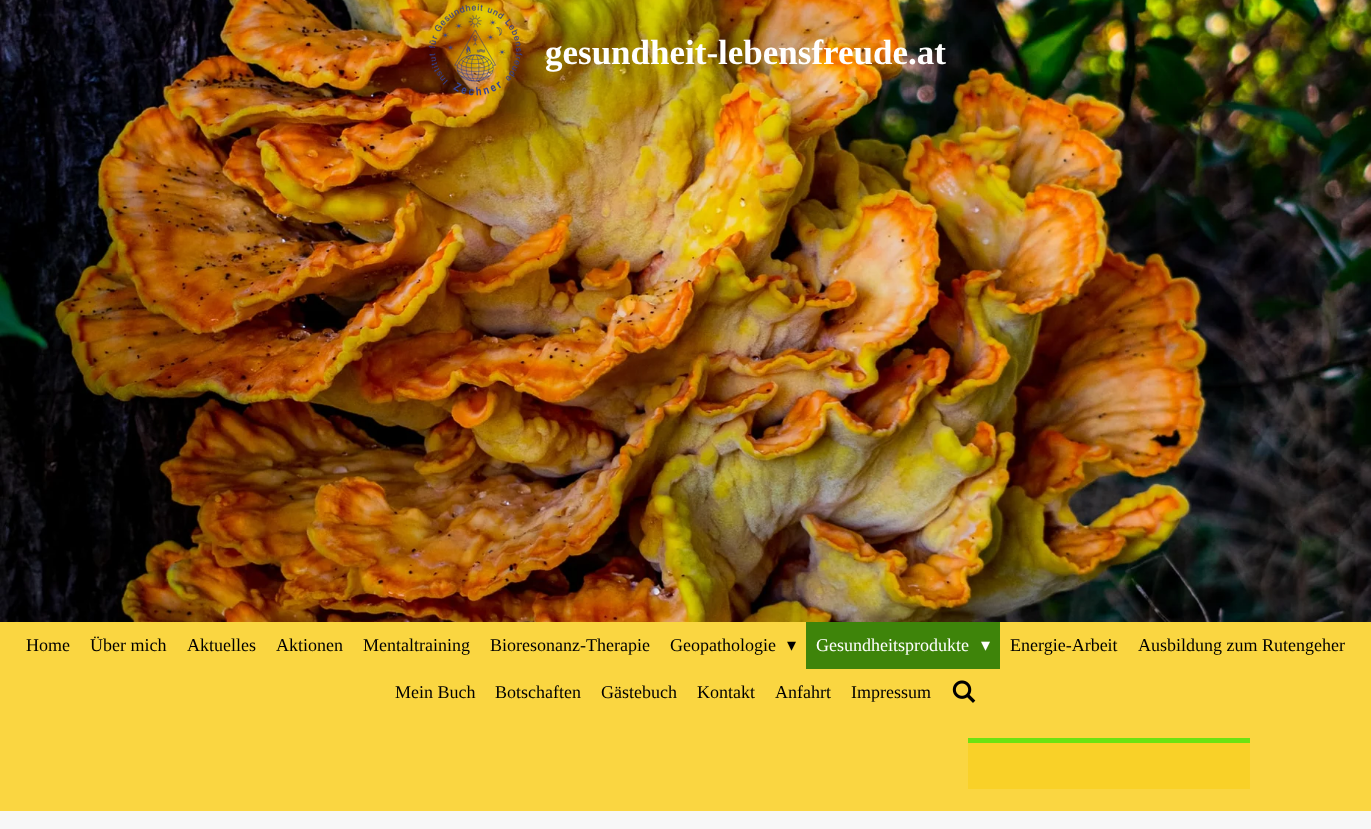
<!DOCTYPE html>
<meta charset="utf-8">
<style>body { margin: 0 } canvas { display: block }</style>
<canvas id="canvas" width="1371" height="829"></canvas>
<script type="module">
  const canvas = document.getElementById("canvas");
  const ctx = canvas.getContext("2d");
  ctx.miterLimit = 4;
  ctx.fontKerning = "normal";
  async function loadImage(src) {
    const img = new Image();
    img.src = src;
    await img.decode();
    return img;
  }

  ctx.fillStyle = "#fad641";
  ctx.fillRect(0, 0, 1371, 829);
  ctx.drawImage(await loadImage("img1.png"), 0, 0, 1371, 622);
  ctx.drawImage(await loadImage("img2.png"), 428, 4, 95, 92);
  ctx.font = "bold 35px Liberation Serif";
  ctx.fillStyle = "#ffffff";
  ctx.fillText("gesundheit-lebensfreude.at", 545, 64);
  ctx.font = "18px Liberation Serif";
  ctx.fillStyle = "#000000";
  ctx.fillText("Home", 26, 651);
  ctx.fillText("Über mich", 90, 651);
  ctx.fillText("Aktuelles", 187, 651);
  ctx.fillText("Aktionen", 276, 651);
  ctx.fillText("Mentaltraining", 363, 651);
  ctx.fillText("Bioresonanz-Therapie", 490, 651);
  ctx.fillText("Geopathologie", 670, 651);
  ctx.font = "18px DejaVu Sans";
  ctx.fillText("▾", 787, 651);
  ctx.fillStyle = "#3e840a";
  ctx.fillRect(806, 622, 194, 47);
  ctx.font = "18px Liberation Serif";
  ctx.fillStyle = "#ffffff";
  ctx.fillText("Gesundheitsprodukte", 816, 651);
  ctx.font = "18px DejaVu Sans";
  ctx.fillText("▾", 981, 651);
  ctx.font = "18px Liberation Serif";
  ctx.fillStyle = "#000000";
  ctx.fillText("Energie-Arbeit", 1010, 651);
  ctx.fillText("Ausbildung zum Rutengeher", 1138, 651);
  ctx.fillText("Mein Buch", 395, 698);
  ctx.fillText("Botschaften", 495, 698);
  ctx.fillText("Gästebuch", 601, 698);
  ctx.fillText("Kontakt", 697, 698);
  ctx.fillText("Anfahrt", 775, 698);
  ctx.fillText("Impressum", 851, 698);
  ctx.drawImage(await loadImage("img3.png"), 952, 680, 24, 23);
  ctx.fillStyle = "#f9d128";
  ctx.fillRect(968, 743, 282, 46);
  ctx.fillStyle = "#6be311";
  ctx.fillRect(968, 738, 282, 5);
  ctx.fillStyle = "#f7f7f7";
  ctx.fillRect(0, 811, 1371, 18);
</script>
